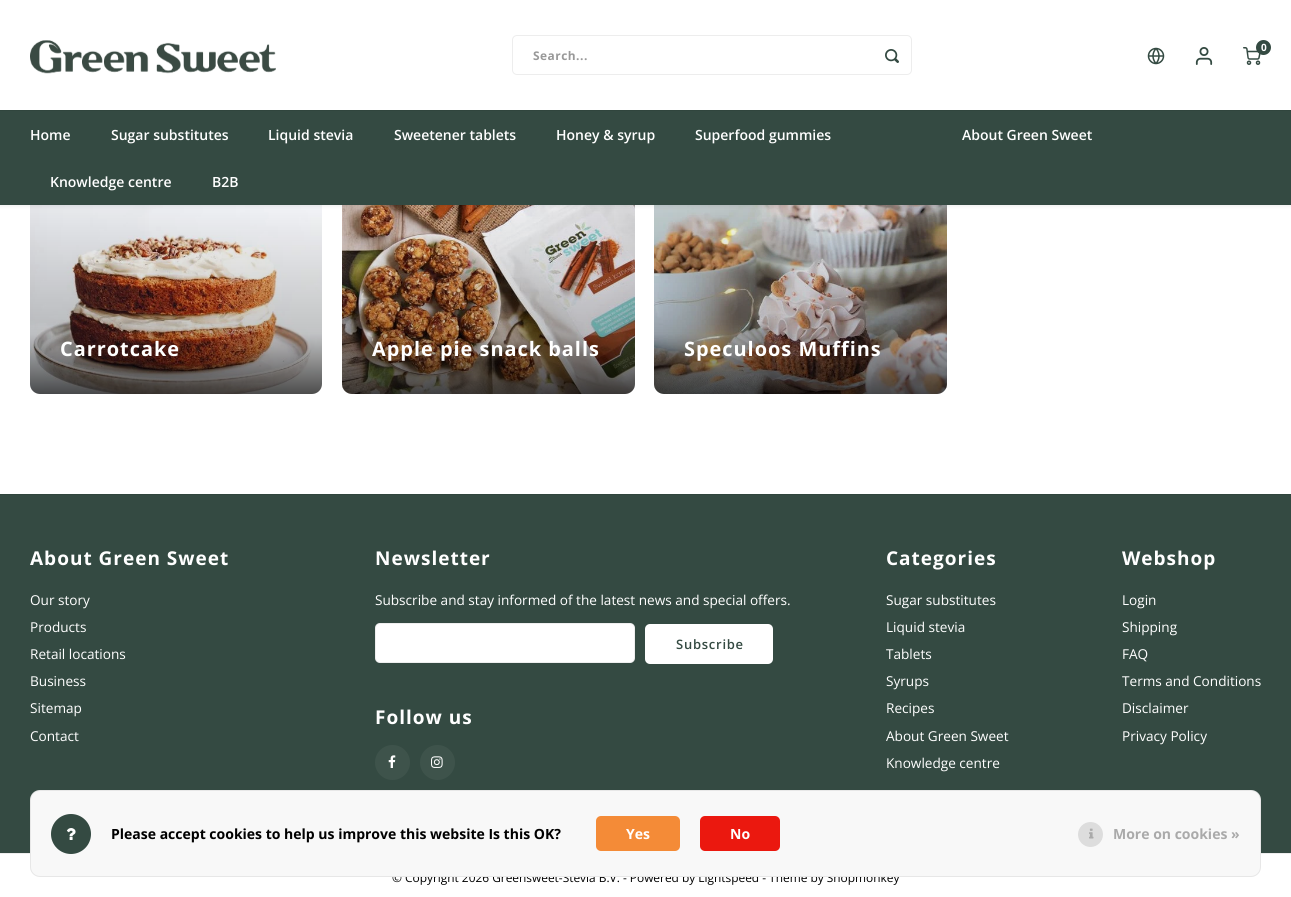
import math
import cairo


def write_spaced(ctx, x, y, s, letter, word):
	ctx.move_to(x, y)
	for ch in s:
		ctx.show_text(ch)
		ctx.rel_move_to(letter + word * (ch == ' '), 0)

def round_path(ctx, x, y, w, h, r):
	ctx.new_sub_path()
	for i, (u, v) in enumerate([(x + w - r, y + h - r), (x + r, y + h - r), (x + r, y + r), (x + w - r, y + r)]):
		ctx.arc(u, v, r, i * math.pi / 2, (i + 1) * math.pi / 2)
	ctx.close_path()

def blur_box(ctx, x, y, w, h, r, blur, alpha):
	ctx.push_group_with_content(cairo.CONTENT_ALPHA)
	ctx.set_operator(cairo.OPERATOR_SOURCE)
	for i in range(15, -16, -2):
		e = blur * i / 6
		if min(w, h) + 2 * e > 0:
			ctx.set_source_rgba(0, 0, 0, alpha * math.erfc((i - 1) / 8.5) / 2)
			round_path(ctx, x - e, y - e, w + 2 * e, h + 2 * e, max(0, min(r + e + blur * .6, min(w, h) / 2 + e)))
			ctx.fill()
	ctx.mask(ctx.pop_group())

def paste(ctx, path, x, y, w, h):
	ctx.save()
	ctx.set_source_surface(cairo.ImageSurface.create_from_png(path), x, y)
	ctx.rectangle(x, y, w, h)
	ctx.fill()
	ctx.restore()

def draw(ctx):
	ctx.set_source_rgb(1, 1, 1)
	ctx.paint()
	paste(ctx, 'media/6.png', 30, 205, 292, 189)
	gradient = cairo.LinearGradient(176, 394, 176, 189)
	gradient.add_color_stop_rgba(0, 0, 0, 0, 0.7)
	gradient.add_color_stop_rgba(0.29, 0, 0, 0, 0.23)
	gradient.add_color_stop_rgba(1, 0, 0, 0, 0)
	ctx.set_source(gradient)
	round_path(ctx, 30, 189, 292, 205, 10)
	ctx.fill()
	paste(ctx, 'media/7.png', 342, 205, 293, 189)
	gradient = cairo.LinearGradient(489, 394, 489, 189)
	gradient.add_color_stop_rgba(0, 0, 0, 0, 0.7)
	gradient.add_color_stop_rgba(0.29, 0, 0, 0, 0.23)
	gradient.add_color_stop_rgba(1, 0, 0, 0, 0)
	ctx.set_source(gradient)
	round_path(ctx, 342, 189, 293, 205, 10)
	ctx.fill()
	paste(ctx, 'media/8.png', 654, 205, 293, 189)
	gradient = cairo.LinearGradient(801, 394, 801, 189)
	gradient.add_color_stop_rgba(0, 0, 0, 0, 0.7)
	gradient.add_color_stop_rgba(0.29, 0, 0, 0, 0.23)
	gradient.add_color_stop_rgba(1, 0, 0, 0, 0)
	ctx.set_source(gradient)
	round_path(ctx, 654, 189, 293, 205, 10)
	ctx.fill()
	ctx.set_source_rgb(0, 0, 0)
	blur_box(ctx, 0, 1, 1291, 205, 0, 2, 0.08)
	ctx.set_source_rgb(1, 1, 1)
	ctx.rectangle(0, 0, 1291, 110)
	ctx.fill()
	paste(ctx, 'media/1.png', 30, 40, 246, 34)
	paste(ctx, 'media/2.png', 1147, 47, 18, 18)
	paste(ctx, 'media/3.png', 1195, 47, 18, 18)
	paste(ctx, 'media/4.png', 1243, 47, 18, 18)
	ctx.set_source_rgb(0.204, 0.29, 0.259)
	ctx.arc(1263.5, 47.5, 7.5, 0, 2 * math.pi)
	ctx.fill()
	ctx.select_font_face('Open Sans', cairo.FONT_SLANT_NORMAL, cairo.FONT_WEIGHT_BOLD)
	ctx.set_font_size(10)
	ctx.set_source_rgb(1, 1, 1)
	ctx.move_to(1261, 51)
	ctx.show_text('0')
	round_path(ctx, 512.5, 35.5, 399, 39, 4.5)
	ctx.set_source_rgb(0.929, 0.929, 0.929)
	ctx.set_line_width(1)
	ctx.stroke()
	ctx.set_font_size(11.9)
	ctx.set_source_rgb(0.6, 0.6, 0.6)
	write_spaced(ctx, 533, 60, 'Search...', 0.5, 0)
	paste(ctx, 'media/5.png', 885, 49, 14, 14)
	ctx.set_source_rgb(0.204, 0.29, 0.259)
	ctx.rectangle(0, 111, 1291, 94)
	ctx.fill()
	ctx.set_source_rgb(0.188, 0.271, 0.239)
	ctx.rectangle(0, 110, 1291, 1)
	ctx.fill()
	ctx.select_font_face('Open Sans SemiBold')
	ctx.set_font_size(14)
	ctx.set_source_rgb(1, 1, 1)
	for x, y, s in [
		(30, 140, 'Home'),
		(111, 140, 'Sugar substitutes'),
		(268, 140, 'Liquid stevia'),
		(394, 140, 'Sweetener tablets'),
		(556, 140, 'Honey & syrup'),
		(695, 140, 'Superfood gummies'),
		(962, 140, 'About Green Sweet'),
		(50, 187, 'Knowledge centre'),
		(212, 187, 'B2B'),
	]:
		ctx.move_to(x, y)
		ctx.show_text(s)
	ctx.select_font_face('Open Sans', cairo.FONT_SLANT_NORMAL, cairo.FONT_WEIGHT_BOLD)
	ctx.set_font_size(19.9)
	for x, y, s in [
		(60, 356, 'Carrotcake'),
		(372, 356, 'Apple pie snack balls'),
		(684, 356, 'Speculoos Muffins'),
	]:
		write_spaced(ctx, x, y, s, 1, 0)
	ctx.set_source_rgb(0.204, 0.29, 0.259)
	ctx.rectangle(0, 495, 1291, 358)
	ctx.fill()
	ctx.set_source_rgb(0.188, 0.271, 0.239)
	ctx.rectangle(0, 494, 1291, 1)
	ctx.fill()
	ctx.set_font_size(19)
	ctx.set_source_rgb(1, 1, 1)
	write_spaced(ctx, 30, 565, 'About Green Sweet', 1, 0)
	ctx.select_font_face('Open Sans')
	ctx.set_font_size(13.6)
	for x, y, s in [
		(30, 605, 'Our story'),
		(30, 632, 'Products'),
		(30, 659, 'Retail locations'),
		(30, 686, 'Business'),
		(30, 713, 'Sitemap'),
		(30, 741, 'Contact'),
	]:
		ctx.move_to(x, y)
		ctx.show_text(s)
	ctx.select_font_face('Open Sans', cairo.FONT_SLANT_NORMAL, cairo.FONT_WEIGHT_BOLD)
	ctx.set_font_size(19)
	write_spaced(ctx, 375, 565, 'Newsletter', 1, 0)
	ctx.select_font_face('Open Sans')
	ctx.set_font_size(13.6)
	ctx.move_to(375, 605)
	ctx.show_text('Subscribe and stay informed of the latest news and special offers.')
	round_path(ctx, 375, 623, 260, 40, 5)
	ctx.fill()
	round_path(ctx, 375.5, 623.5, 259, 39, 4.5)
	ctx.set_source_rgba(0, 0, 0, 0.07)
	ctx.stroke()
	ctx.set_source_rgb(1, 1, 1)
	round_path(ctx, 645, 624, 128, 40, 5)
	ctx.fill()
	ctx.select_font_face('Open Sans SemiBold')
	ctx.set_font_size(13)
	ctx.set_source_rgb(0.204, 0.29, 0.259)
	write_spaced(ctx, 676, 649, 'Subscribe', 0.75, 0)
	ctx.select_font_face('Open Sans', cairo.FONT_SLANT_NORMAL, cairo.FONT_WEIGHT_BOLD)
	ctx.set_font_size(19)
	ctx.set_source_rgb(1, 1, 1)
	write_spaced(ctx, 375, 724, 'Follow us', 1, 0)
	ctx.set_source_rgb(0.243, 0.325, 0.294)
	ctx.new_path()
	ctx.arc(392.5, 762.5, 17.5, 0, 2 * math.pi)
	ctx.fill()
	paste(ctx, 'media/9.png', 388, 755, 8, 13)
	ctx.arc(437.5, 762.5, 17.5, 0, 2 * math.pi)
	ctx.fill()
	paste(ctx, 'media/10.png', 431, 756, 12, 12)
	ctx.set_source_rgb(1, 1, 1)
	write_spaced(ctx, 886, 565, 'Categories', 1, 0)
	ctx.select_font_face('Open Sans')
	ctx.set_font_size(13.6)
	for x, y, s in [
		(886, 605, 'Sugar substitutes'),
		(886, 632, 'Liquid stevia'),
		(886, 659, 'Tablets'),
		(886, 686, 'Syrups'),
		(886, 713, 'Recipes'),
		(886, 741, 'About Green Sweet'),
		(886, 768, 'Knowledge centre'),
	]:
		ctx.move_to(x, y)
		ctx.show_text(s)
	ctx.select_font_face('Open Sans', cairo.FONT_SLANT_NORMAL, cairo.FONT_WEIGHT_BOLD)
	ctx.set_font_size(19)
	write_spaced(ctx, 1122, 565, 'Webshop', 1, 0)
	ctx.select_font_face('Open Sans')
	ctx.set_font_size(13.6)
	for x, y, s in [
		(1122, 605, 'Login'),
		(1122, 632, 'Shipping'),
		(1122, 659, 'FAQ'),
		(1122, 686, 'Terms and Conditions'),
		(1122, 713, 'Disclaimer'),
		(1122, 741, 'Privacy Policy'),
	]:
		ctx.move_to(x, y)
		ctx.show_text(s)
	ctx.set_source_rgb(0.929, 0.929, 0.929)
	ctx.rectangle(0, 853, 1291, 1)
	ctx.fill()
	ctx.set_font_size(11.9)
	ctx.set_source_rgb(0, 0, 0)
	ctx.move_to(392, 882)
	ctx.show_text('© Copyright 2026 Greensweet-Stevia B.V. - Powered by Lightspeed - Theme by Shopmonkey')
	ctx.set_source_rgb(0.969, 0.969, 0.969)
	round_path(ctx, 30, 790, 1231, 87, 10)
	ctx.fill()
	round_path(ctx, 30.5, 790.5, 1230, 86, 9.5)
	ctx.set_source_rgba(0, 0, 0, 0.07)
	ctx.stroke()
	ctx.set_source_rgb(0.204, 0.29, 0.259)
	ctx.arc(71, 834, 20, 0, 2 * math.pi)
	ctx.fill()
	paste(ctx, 'media/11.png', 66, 828, 10, 12)
	ctx.select_font_face('Open Sans', cairo.FONT_SLANT_NORMAL, cairo.FONT_WEIGHT_BOLD)
	ctx.set_font_size(14)
	ctx.set_source_rgb(0, 0, 0)
	ctx.move_to(111, 839)
	ctx.show_text('Please accept cookies to help us improve this website Is this OK?')
	ctx.set_source_rgb(0.957, 0.545, 0.216)
	round_path(ctx, 596, 816, 84, 35, 5)
	ctx.fill()
	ctx.set_source_rgb(1, 1, 1)
	ctx.move_to(626, 839)
	ctx.show_text('Yes')
	ctx.set_source_rgb(0.918, 0.094, 0.059)
	round_path(ctx, 700, 816, 80, 35, 5)
	ctx.fill()
	ctx.set_source_rgb(1, 1, 1)
	ctx.move_to(730, 839)
	ctx.show_text('No')
	ctx.set_source_rgb(0.867, 0.867, 0.867)
	ctx.new_path()
	ctx.arc(1090.5, 834.5, 12.5, 0, 2 * math.pi)
	ctx.fill()
	paste(ctx, 'media/12.png', 1089, 828, 5, 11)
	ctx.set_source_rgb(0.667, 0.667, 0.667)
	ctx.move_to(1113, 839)
	ctx.show_text('More on cookies »')


surface = cairo.ImageSurface(cairo.FORMAT_RGB24, 1291, 897)
ctx = cairo.Context(surface)
options = cairo.FontOptions()
options.set_hint_metrics(cairo.HINT_METRICS_OFF)
options.set_hint_style(cairo.HINT_STYLE_NONE)
ctx.set_font_options(options)
ctx.set_miter_limit(4)
draw(ctx)
surface.write_to_png('image.png')
